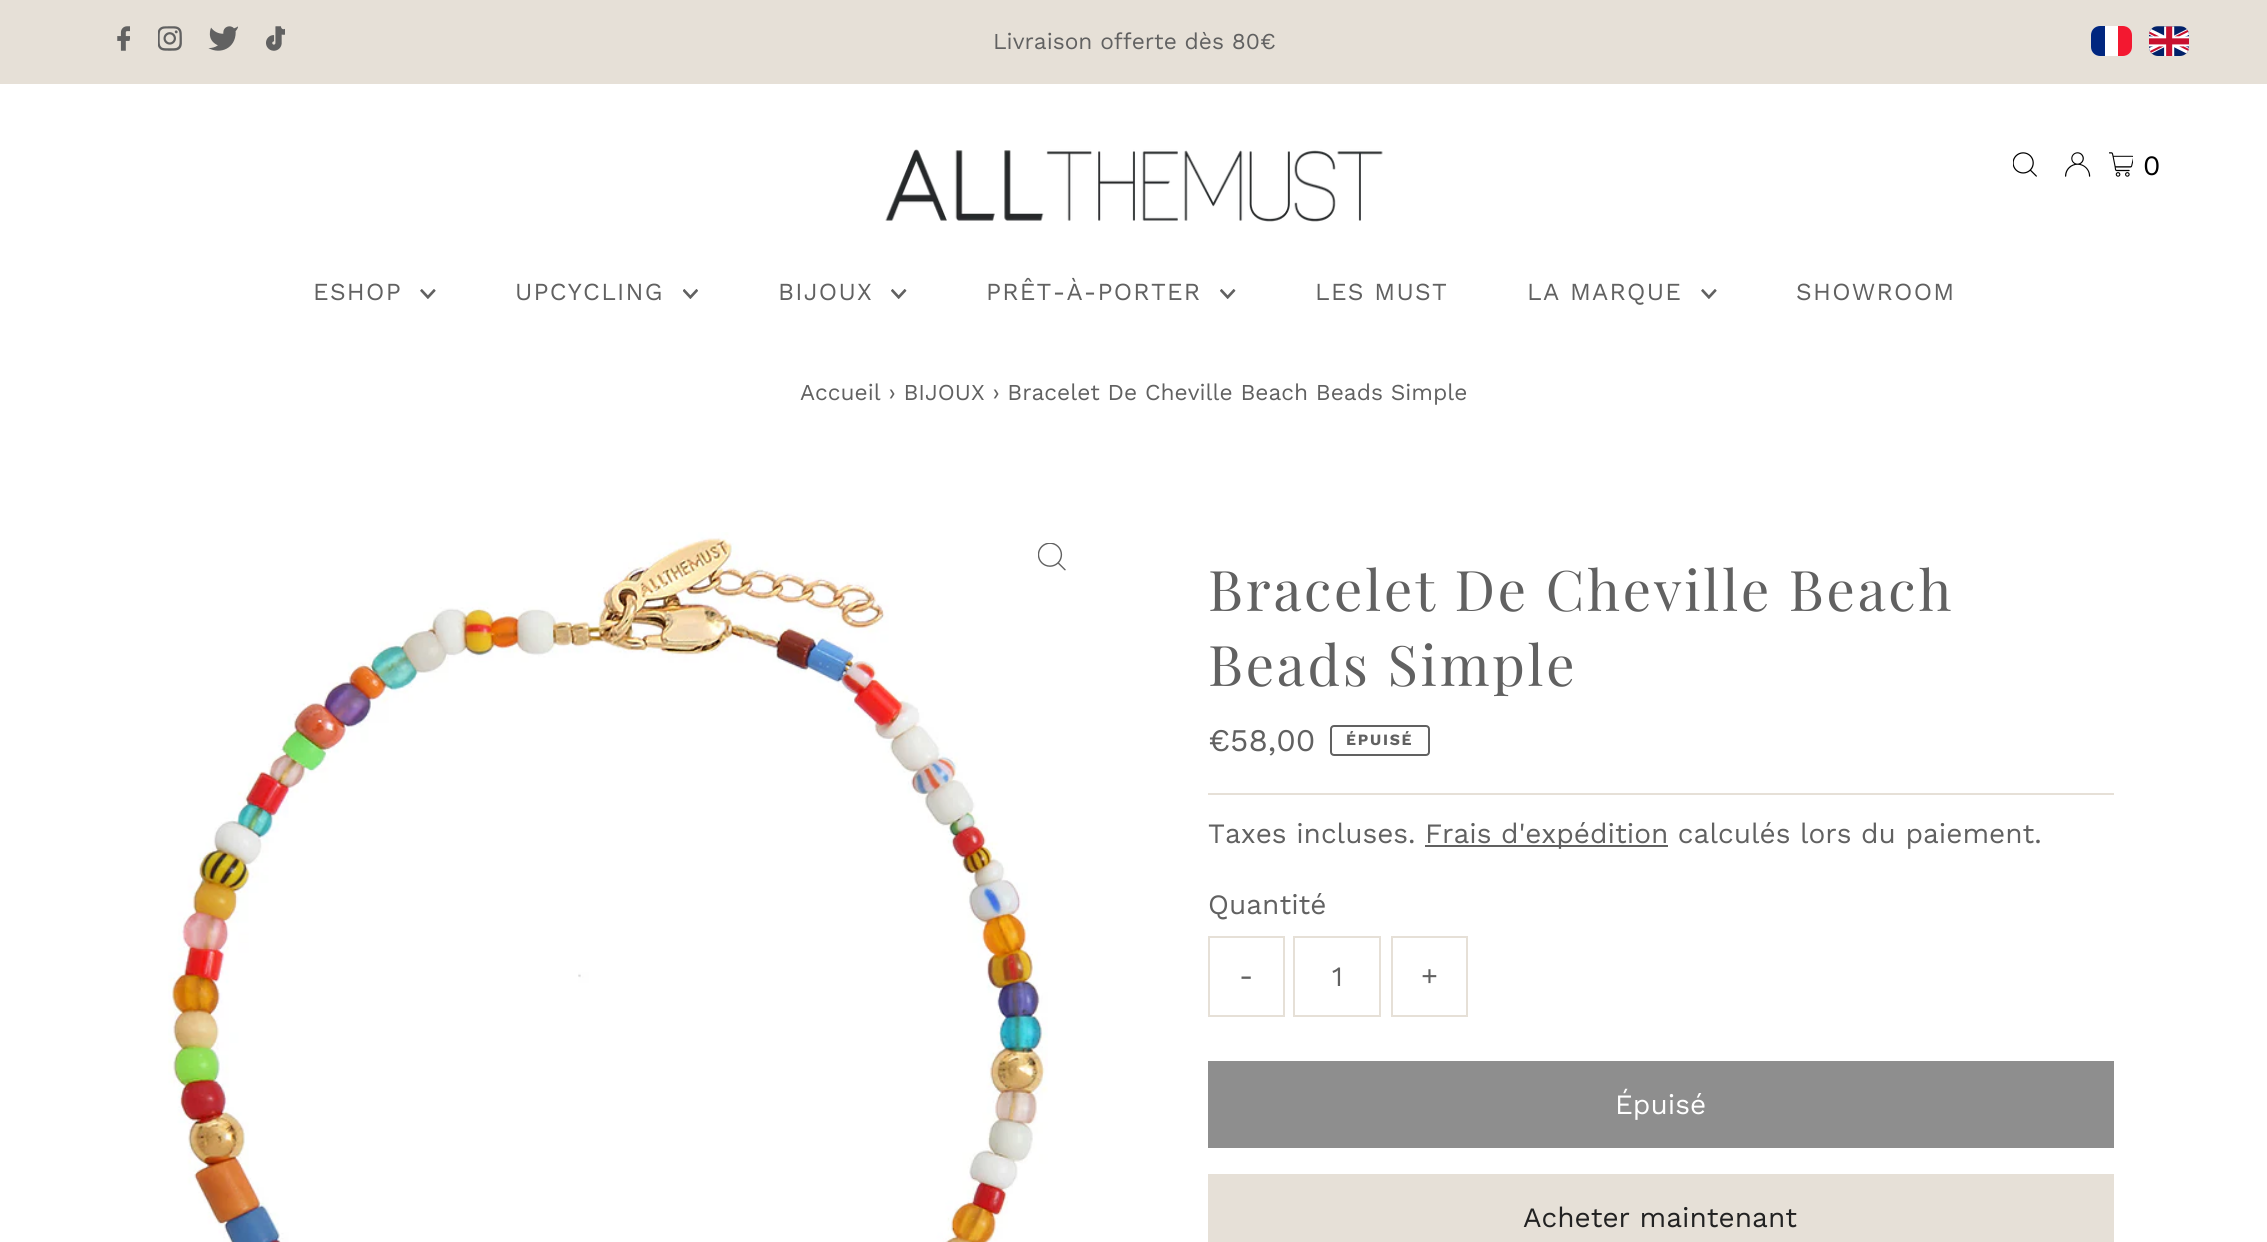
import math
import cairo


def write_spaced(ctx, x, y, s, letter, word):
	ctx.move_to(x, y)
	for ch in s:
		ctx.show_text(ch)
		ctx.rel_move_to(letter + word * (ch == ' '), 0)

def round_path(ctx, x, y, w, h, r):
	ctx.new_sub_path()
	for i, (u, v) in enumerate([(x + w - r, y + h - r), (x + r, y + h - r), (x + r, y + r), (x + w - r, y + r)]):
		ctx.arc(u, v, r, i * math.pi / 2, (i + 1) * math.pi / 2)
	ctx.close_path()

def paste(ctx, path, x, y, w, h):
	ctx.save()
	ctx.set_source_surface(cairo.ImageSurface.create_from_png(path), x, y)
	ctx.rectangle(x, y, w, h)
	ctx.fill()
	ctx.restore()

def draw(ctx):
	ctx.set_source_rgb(1, 1, 1)
	ctx.paint()
	ctx.set_source_rgb(0.902, 0.878, 0.843)
	ctx.rectangle(0, 0, 2267, 84)
	ctx.fill()
	ctx.set_source_rgb(1, 1, 1)
	round_path(ctx, 2091, 26, 41, 30, 9)
	ctx.fill()
	ctx.set_source_rgb(0, 0.149, 0.498)
	ctx.new_path()
	ctx.move_to(2100, 26)
	ctx.line_to(2105, 26)
	ctx.line_to(2105, 56)
	ctx.line_to(2100, 56)
	ctx.curve_to(2095, 56, 2091, 52, 2091, 47)
	ctx.line_to(2091, 35)
	ctx.curve_to(2091, 30, 2095, 26, 2100, 26)
	ctx.close_path()
	ctx.fill()
	ctx.set_source_rgb(0.953, 0.094, 0.188)
	ctx.new_path()
	ctx.move_to(2118, 26)
	ctx.line_to(2123, 26)
	ctx.curve_to(2128, 26, 2132, 30, 2132, 35)
	ctx.line_to(2132, 47)
	ctx.curve_to(2132, 52, 2128, 56, 2123, 56)
	ctx.line_to(2118, 56)
	ctx.close_path()
	ctx.fill()
	paste(ctx, 'media/1.png', 2149, 26, 40, 30)
	paste(ctx, 'media/2.png', 117, 26, 13, 25)
	paste(ctx, 'media/3.png', 158, 26, 24, 25)
	paste(ctx, 'media/4.png', 208, 26, 30, 25)
	paste(ctx, 'media/5.png', 266, 26, 19, 25)
	ctx.select_font_face('Work Sans')
	ctx.set_font_size(22.75)
	ctx.set_source_rgb(0.38, 0.38, 0.38)
	ctx.move_to(993, 49)
	ctx.show_text('Livraison offerte dès 80€')
	paste(ctx, 'media/6.png', 885, 149, 498, 73)
	paste(ctx, 'media/7.png', 2013, 152, 24, 25)
	paste(ctx, 'media/8.png', 2065, 152, 26, 25)
	paste(ctx, 'media/9.png', 2109, 152, 24, 25)
	ctx.set_font_size(28)
	ctx.set_source_rgb(0, 0, 0)
	ctx.move_to(2143, 175)
	ctx.show_text('0')
	ctx.set_font_size(24.5)
	ctx.set_source_rgb(0.38, 0.38, 0.38)
	write_spaced(ctx, 313, 300, 'ESHOP', 1.25, 0)
	paste(ctx, 'media/10.png', 420, 289, 16, 10)
	write_spaced(ctx, 515, 300, 'UPCYCLING', 1.25, 0)
	paste(ctx, 'media/11.png', 683, 289, 15, 10)
	write_spaced(ctx, 778, 300, 'BIJOUX', 1.25, 0)
	paste(ctx, 'media/12.png', 891, 289, 16, 10)
	write_spaced(ctx, 986, 300, 'PRÊT-À-PORTER', 1.25, 0)
	paste(ctx, 'media/12.png', 1220, 289, 16, 10)
	write_spaced(ctx, 1315, 300, 'LES MUST', 1.25, 0)
	write_spaced(ctx, 1527, 300, 'LA MARQUE', 1.25, 0)
	paste(ctx, 'media/10.png', 1701, 289, 16, 10)
	write_spaced(ctx, 1796, 300, 'SHOWROOM', 1.25, 0)
	ctx.set_font_size(22.75)
	ctx.move_to(800, 400)
	ctx.show_text('Accueil › BIJOUX › Bracelet De Cheville Beach Beads Simple')
	paste(ctx, 'media/13.png', 168, 532, 880, 710)
	paste(ctx, 'media/14.png', 1038, 543, 28, 28)
	ctx.select_font_face('Playfair Display')
	ctx.set_font_size(56)
	write_spaced(ctx, 1208, 611, 'Bracelet De Cheville Beach', 2.8, 0)
	write_spaced(ctx, 1208, 686, 'Beads Simple', 2.8, 0)
	ctx.set_source_rgb(0.902, 0.878, 0.843)
	ctx.rectangle(1208, 793, 906, 2)
	ctx.fill()
	ctx.select_font_face('Work Sans')
	ctx.set_font_size(31.5)
	ctx.set_source_rgb(0.38, 0.38, 0.38)
	ctx.move_to(1208, 751)
	ctx.show_text('€58,00')
	round_path(ctx, 1331, 726, 98, 29, 3)
	ctx.stroke()
	ctx.select_font_face('Work Sans', cairo.FONT_SLANT_NORMAL, cairo.FONT_WEIGHT_BOLD)
	ctx.set_font_size(15.75)
	write_spaced(ctx, 1346, 745, 'ÉPUISÉ', 1.75, 0)
	ctx.select_font_face('Work Sans')
	ctx.set_font_size(28)
	ctx.move_to(1208, 843)
	ctx.show_text('Taxes incluses.')
	ctx.rectangle(1425, 845, 243, 2)
	ctx.fill()
	ctx.move_to(1425, 843)
	ctx.show_text('Frais d\'expédition calculés lors du paiement.')
	ctx.move_to(1208, 914)
	ctx.show_text('Quantité')
	ctx.rectangle(1209, 937, 75, 79)
	ctx.set_source_rgb(0.902, 0.878, 0.843)
	ctx.stroke()
	ctx.set_source_rgb(0.38, 0.38, 0.38)
	ctx.move_to(1239, 985)
	ctx.show_text('-')
	ctx.rectangle(1294, 937, 86, 79)
	ctx.set_source_rgb(0.902, 0.878, 0.843)
	ctx.stroke()
	ctx.set_source_rgb(0.38, 0.38, 0.38)
	ctx.move_to(1332, 986)
	ctx.show_text('1')
	ctx.rectangle(1392, 937, 75, 79)
	ctx.set_source_rgb(0.902, 0.878, 0.843)
	ctx.stroke()
	ctx.set_source_rgb(0.38, 0.38, 0.38)
	ctx.move_to(1421, 985)
	ctx.show_text('+')
	ctx.set_source_rgb(0.557, 0.557, 0.557)
	ctx.rectangle(1208, 1061, 906, 87)
	ctx.fill()
	ctx.set_source_rgb(1, 1, 1)
	ctx.move_to(1615, 1114)
	ctx.show_text('Épuisé')
	ctx.set_source_rgb(0.902, 0.878, 0.843)
	ctx.rectangle(1208, 1174, 906, 68)
	ctx.fill()
	ctx.set_source_rgb(0.133, 0.133, 0.133)
	ctx.move_to(1523, 1227)
	ctx.show_text('Acheter maintenant')


surface = cairo.ImageSurface(cairo.FORMAT_RGB24, 2267, 1242)
ctx = cairo.Context(surface)
options = cairo.FontOptions()
options.set_hint_metrics(cairo.HINT_METRICS_OFF)
options.set_hint_style(cairo.HINT_STYLE_NONE)
ctx.set_font_options(options)
ctx.set_miter_limit(4)
draw(ctx)
surface.write_to_png('image.png')
